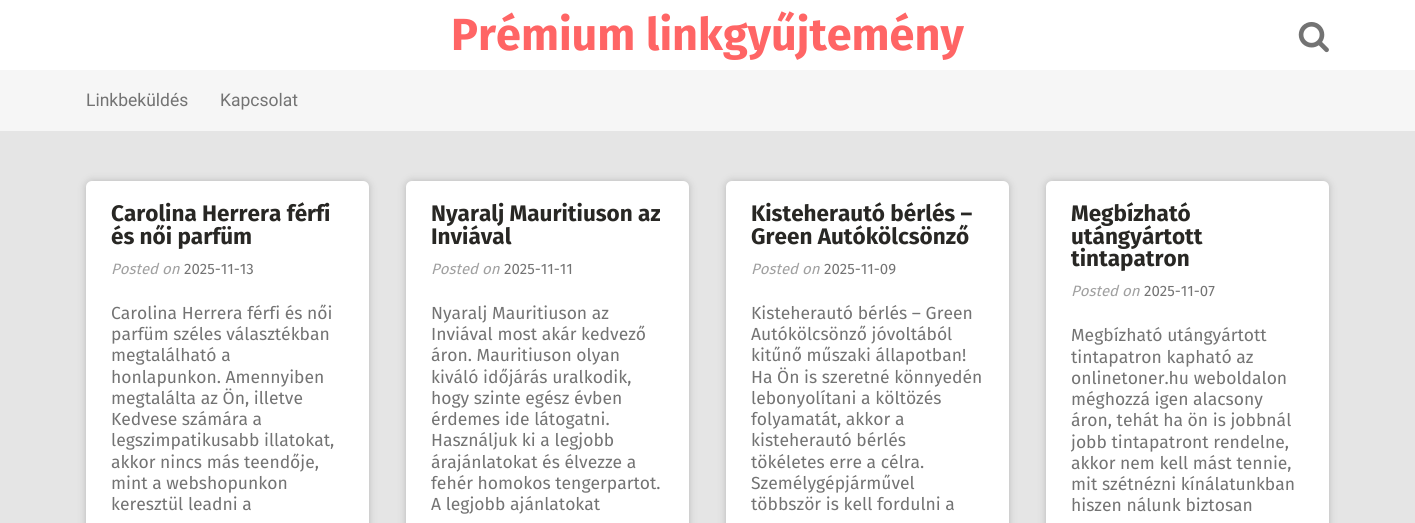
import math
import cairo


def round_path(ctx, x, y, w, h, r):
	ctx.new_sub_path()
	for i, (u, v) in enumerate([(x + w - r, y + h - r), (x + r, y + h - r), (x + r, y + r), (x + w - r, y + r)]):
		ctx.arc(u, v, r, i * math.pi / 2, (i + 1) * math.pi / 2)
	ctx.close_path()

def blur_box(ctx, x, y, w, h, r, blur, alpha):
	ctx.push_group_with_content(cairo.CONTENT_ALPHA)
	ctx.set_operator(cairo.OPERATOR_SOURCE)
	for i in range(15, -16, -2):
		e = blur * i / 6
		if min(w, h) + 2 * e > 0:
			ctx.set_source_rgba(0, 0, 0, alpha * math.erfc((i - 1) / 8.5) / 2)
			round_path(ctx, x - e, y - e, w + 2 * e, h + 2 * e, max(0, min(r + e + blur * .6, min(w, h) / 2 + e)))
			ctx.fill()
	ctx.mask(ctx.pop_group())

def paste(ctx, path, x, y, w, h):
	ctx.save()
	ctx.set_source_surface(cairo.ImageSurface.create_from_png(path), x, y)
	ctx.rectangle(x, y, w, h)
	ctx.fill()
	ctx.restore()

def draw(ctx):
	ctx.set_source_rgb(0.898, 0.898, 0.898)
	ctx.paint()
	ctx.set_source_rgb(1, 1, 1)
	ctx.rectangle(0, 0, 1415, 70)
	ctx.fill()
	ctx.select_font_face('Fira Sans', cairo.FONT_SLANT_NORMAL, cairo.FONT_WEIGHT_BOLD)
	ctx.set_font_size(45)
	ctx.set_source_rgb(1, 0.396, 0.396)
	ctx.move_to(451, 50)
	ctx.show_text('Prémium linkgyűjtemény')
	paste(ctx, 'media/1.png', 1298, 22, 31, 31)
	ctx.set_source_rgb(0.961, 0.961, 0.961)
	ctx.rectangle(0, 70, 1415, 61)
	ctx.fill()
	ctx.select_font_face('Roboto')
	ctx.set_font_size(17.5)
	ctx.set_source_rgb(0.451, 0.451, 0.451)
	ctx.move_to(86, 106)
	ctx.show_text('Linkbeküldés')
	ctx.move_to(220, 106)
	ctx.show_text('Kapcsolat')
	ctx.set_source_rgb(0, 0, 0)
	blur_box(ctx, 86, 181, 283, 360, 6, 4, 0.2)
	ctx.set_source_rgb(1, 1, 1)
	round_path(ctx, 86, 181, 283, 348, 6)
	ctx.fill()
	ctx.select_font_face('Fira Sans', cairo.FONT_SLANT_NORMAL, cairo.FONT_WEIGHT_BOLD)
	ctx.set_font_size(22.5)
	ctx.set_source_rgb(0.157, 0.153, 0.141)
	ctx.move_to(111, 221)
	ctx.show_text('Carolina Herrera férfi')
	ctx.move_to(111, 244)
	ctx.show_text('és női parfüm')
	ctx.select_font_face('Fira Sans', cairo.FONT_SLANT_ITALIC)
	ctx.set_font_size(15)
	ctx.set_source_rgb(0.627, 0.627, 0.627)
	ctx.move_to(111, 274)
	ctx.show_text('Posted on')
	ctx.select_font_face('Fira Sans')
	ctx.set_source_rgb(0.451, 0.451, 0.451)
	ctx.move_to(184, 274)
	ctx.show_text('2025-11-13')
	ctx.set_font_size(17.5)
	for x, y, s in [
		(111, 319, 'Carolina Herrera férfi és női'),
		(111, 340, 'parfüm széles választékban'),
		(111, 361, 'megtalálható a'),
		(111, 383, 'honlapunkon. Amennyiben'),
		(111, 404, 'megtalálta az Ön, illetve'),
		(111, 425, 'Kedvese számára a'),
		(111, 446, 'legszimpatikusabb illatokat,'),
		(111, 468, 'akkor nincs más teendője,'),
		(111, 489, 'mint a webshopunkon'),
		(111, 510, 'keresztül leadni a'),
	]:
		ctx.move_to(x, y)
		ctx.show_text(s)
	ctx.set_source_rgb(0, 0, 0)
	blur_box(ctx, 406, 181, 283, 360, 6, 4, 0.2)
	ctx.set_source_rgb(1, 1, 1)
	round_path(ctx, 406, 181, 283, 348, 6)
	ctx.fill()
	ctx.select_font_face('Fira Sans', cairo.FONT_SLANT_NORMAL, cairo.FONT_WEIGHT_BOLD)
	ctx.set_font_size(22.5)
	ctx.set_source_rgb(0.157, 0.153, 0.141)
	ctx.move_to(431, 221)
	ctx.show_text('Nyaralj Mauritiuson az')
	ctx.move_to(431, 244)
	ctx.show_text('Inviával')
	ctx.select_font_face('Fira Sans', cairo.FONT_SLANT_ITALIC)
	ctx.set_font_size(15)
	ctx.set_source_rgb(0.627, 0.627, 0.627)
	ctx.move_to(431, 274)
	ctx.show_text('Posted on')
	ctx.select_font_face('Fira Sans')
	ctx.set_source_rgb(0.451, 0.451, 0.451)
	ctx.move_to(504, 274)
	ctx.show_text('2025-11-11')
	ctx.set_font_size(17.5)
	for x, y, s in [
		(431, 319, 'Nyaralj Mauritiuson az'),
		(431, 340, 'Inviával most akár kedvező'),
		(431, 361, 'áron. Mauritiuson olyan'),
		(431, 383, 'kiváló időjárás uralkodik,'),
		(431, 404, 'hogy szinte egész évben'),
		(431, 425, 'érdemes ide látogatni.'),
		(431, 446, 'Használjuk ki a legjobb'),
		(431, 468, 'árajánlatokat és élvezze a'),
		(431, 489, 'fehér homokos tengerpartot.'),
		(431, 510, 'A legjobb ajánlatokat'),
	]:
		ctx.move_to(x, y)
		ctx.show_text(s)
	ctx.set_source_rgb(0, 0, 0)
	blur_box(ctx, 726, 181, 283, 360, 6, 4, 0.2)
	ctx.set_source_rgb(1, 1, 1)
	round_path(ctx, 726, 181, 283, 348, 6)
	ctx.fill()
	ctx.select_font_face('Fira Sans', cairo.FONT_SLANT_NORMAL, cairo.FONT_WEIGHT_BOLD)
	ctx.set_font_size(22.5)
	ctx.set_source_rgb(0.157, 0.153, 0.141)
	ctx.move_to(751, 221)
	ctx.show_text('Kisteherautó bérlés –')
	ctx.move_to(751, 244)
	ctx.show_text('Green Autókölcsönző')
	ctx.select_font_face('Fira Sans', cairo.FONT_SLANT_ITALIC)
	ctx.set_font_size(15)
	ctx.set_source_rgb(0.627, 0.627, 0.627)
	ctx.move_to(751, 274)
	ctx.show_text('Posted on')
	ctx.select_font_face('Fira Sans')
	ctx.set_source_rgb(0.451, 0.451, 0.451)
	ctx.move_to(824, 274)
	ctx.show_text('2025-11-09')
	ctx.set_font_size(17.5)
	for x, y, s in [
		(751, 319, 'Kisteherautó bérlés – Green'),
		(751, 340, 'Autókölcsönző jóvoltából'),
		(751, 361, 'kitűnő műszaki állapotban!'),
		(751, 383, 'Ha Ön is szeretné könnyedén'),
		(751, 404, 'lebonyolítani a költözés'),
		(751, 425, 'folyamatát, akkor a'),
		(751, 446, 'kisteherautó bérlés'),
		(751, 468, 'tökéletes erre a célra.'),
		(751, 489, 'Személygépjárművel'),
		(751, 510, 'többször is kell fordulni a'),
	]:
		ctx.move_to(x, y)
		ctx.show_text(s)
	ctx.set_source_rgb(0, 0, 0)
	blur_box(ctx, 1046, 181, 283, 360, 6, 4, 0.2)
	ctx.set_source_rgb(1, 1, 1)
	round_path(ctx, 1046, 181, 283, 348, 6)
	ctx.fill()
	ctx.select_font_face('Fira Sans', cairo.FONT_SLANT_NORMAL, cairo.FONT_WEIGHT_BOLD)
	ctx.set_font_size(22.5)
	ctx.set_source_rgb(0.157, 0.153, 0.141)
	for x, y, s in [
		(1071, 221, 'Megbízható'),
		(1071, 244, 'utángyártott'),
		(1071, 266, 'tintapatron'),
	]:
		ctx.move_to(x, y)
		ctx.show_text(s)
	ctx.select_font_face('Fira Sans', cairo.FONT_SLANT_ITALIC)
	ctx.set_font_size(15)
	ctx.set_source_rgb(0.627, 0.627, 0.627)
	ctx.move_to(1071, 296)
	ctx.show_text('Posted on')
	ctx.select_font_face('Fira Sans')
	ctx.set_source_rgb(0.451, 0.451, 0.451)
	ctx.move_to(1144, 296)
	ctx.show_text('2025-11-07')
	ctx.set_font_size(17.5)
	for x, y, s in [
		(1071, 341, 'Megbízható utángyártott'),
		(1071, 363, 'tintapatron kapható az'),
		(1071, 384, 'onlinetoner.hu weboldalon'),
		(1071, 405, 'méghozzá igen alacsony'),
		(1071, 426, 'áron, tehát ha ön is jobbnál'),
		(1071, 448, 'jobb tintapatront rendelne,'),
		(1071, 469, 'akkor nem kell mást tennie,'),
		(1071, 490, 'mit szétnézni kínálatunkban'),
		(1071, 511, 'hiszen nálunk biztosan'),
	]:
		ctx.move_to(x, y)
		ctx.show_text(s)


surface = cairo.ImageSurface(cairo.FORMAT_RGB24, 1415, 523)
ctx = cairo.Context(surface)
options = cairo.FontOptions()
options.set_hint_metrics(cairo.HINT_METRICS_OFF)
options.set_hint_style(cairo.HINT_STYLE_NONE)
ctx.set_font_options(options)
ctx.set_miter_limit(4)
draw(ctx)
surface.write_to_png('image.png')
